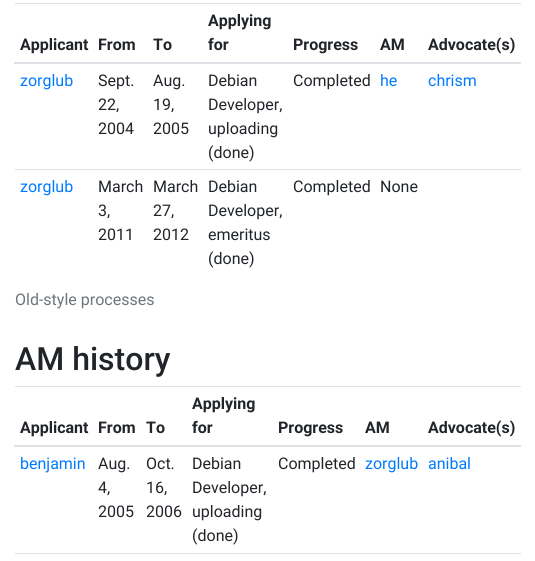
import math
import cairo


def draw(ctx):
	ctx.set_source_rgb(1, 1, 1)
	ctx.paint()
	ctx.select_font_face('Roboto', cairo.FONT_SLANT_NORMAL, cairo.FONT_WEIGHT_BOLD)
	ctx.set_font_size(16)
	ctx.set_source_rgb(0.129, 0.145, 0.161)
	for x, y, s in [
		(20, 50, 'Applicant'),
		(98, 50, 'From'),
		(153, 50, 'To'),
		(208, 26, 'Applying'),
		(208, 50, 'for'),
		(293, 50, 'Progress'),
		(380, 50, 'AM'),
	]:
		ctx.move_to(x, y)
		ctx.show_text(s)
	ctx.set_source_rgb(0.871, 0.886, 0.902)
	ctx.rectangle(15, 3, 506, 1)
	ctx.fill()
	ctx.rectangle(14, 62, 507, 2)
	ctx.fill()
	ctx.set_source_rgb(0.129, 0.145, 0.161)
	ctx.move_to(428, 50)
	ctx.show_text('Advocate(s)')
	ctx.select_font_face('Roboto')
	ctx.set_source_rgb(0, 0.482, 1)
	ctx.move_to(20, 86)
	ctx.show_text('zorglub')
	ctx.set_source_rgb(0.129, 0.145, 0.161)
	for x, y, s in [
		(98, 86, 'Sept.'),
		(98, 110, '22,'),
		(98, 134, '2004'),
		(153, 86, 'Aug.'),
		(153, 110, '19,'),
		(153, 134, '2005'),
		(208, 86, 'Debian'),
		(208, 110, 'Developer,'),
		(208, 134, 'uploading'),
		(208, 158, '(done)'),
		(293, 86, 'Completed'),
	]:
		ctx.move_to(x, y)
		ctx.show_text(s)
	ctx.set_source_rgb(0, 0.482, 1)
	ctx.move_to(380, 86)
	ctx.show_text('he')
	ctx.move_to(428, 86)
	ctx.show_text('chrism')
	ctx.set_source_rgb(0.871, 0.886, 0.902)
	ctx.rectangle(15, 169, 506, 1)
	ctx.fill()
	ctx.set_source_rgb(0, 0.482, 1)
	ctx.move_to(20, 192)
	ctx.show_text('zorglub')
	ctx.set_source_rgb(0.129, 0.145, 0.161)
	for x, y, s in [
		(98, 192, 'March'),
		(98, 216, '3,'),
		(98, 240, '2011'),
		(153, 192, 'March'),
		(153, 216, '27,'),
		(153, 240, '2012'),
		(208, 192, 'Debian'),
		(208, 216, 'Developer,'),
		(208, 240, 'emeritus'),
		(208, 264, '(done)'),
		(293, 192, 'Completed'),
		(380, 192, 'None'),
	]:
		ctx.move_to(x, y)
		ctx.show_text(s)
	ctx.set_source_rgb(0.424, 0.459, 0.49)
	ctx.move_to(15, 305)
	ctx.show_text('Old-style processes')
	ctx.select_font_face('Roboto Medium')
	ctx.set_font_size(32)
	ctx.set_source_rgb(0.129, 0.145, 0.161)
	ctx.move_to(15, 370)
	ctx.show_text('AM history')
	ctx.select_font_face('Roboto', cairo.FONT_SLANT_NORMAL, cairo.FONT_WEIGHT_BOLD)
	ctx.set_font_size(16)
	for x, y, s in [
		(20, 433, 'Applicant'),
		(98, 433, 'From'),
		(146, 433, 'To'),
		(192, 409, 'Applying'),
		(192, 433, 'for'),
		(278, 433, 'Progress'),
		(365, 433, 'AM'),
	]:
		ctx.move_to(x, y)
		ctx.show_text(s)
	ctx.set_source_rgb(0.871, 0.886, 0.902)
	ctx.rectangle(15, 386, 506, 1)
	ctx.fill()
	ctx.rectangle(14, 445, 507, 2)
	ctx.fill()
	ctx.set_source_rgb(0.129, 0.145, 0.161)
	ctx.move_to(428, 433)
	ctx.show_text('Advocate(s)')
	ctx.select_font_face('Roboto')
	ctx.set_source_rgb(0, 0.482, 1)
	ctx.move_to(20, 469)
	ctx.show_text('benjamin')
	ctx.set_source_rgb(0.129, 0.145, 0.161)
	for x, y, s in [
		(98, 469, 'Aug.'),
		(98, 493, '4,'),
		(98, 517, '2005'),
		(146, 469, 'Oct.'),
		(146, 493, '16,'),
		(146, 517, '2006'),
		(192, 469, 'Debian'),
		(192, 493, 'Developer,'),
		(192, 517, 'uploading'),
		(192, 541, '(done)'),
		(278, 469, 'Completed'),
	]:
		ctx.move_to(x, y)
		ctx.show_text(s)
	ctx.set_source_rgb(0, 0.482, 1)
	ctx.move_to(365, 469)
	ctx.show_text('zorglub')
	ctx.move_to(428, 469)
	ctx.show_text('anibal')
	ctx.set_source_rgb(0.871, 0.886, 0.902)
	ctx.rectangle(15, 553, 506, 1)
	ctx.fill()


surface = cairo.ImageSurface(cairo.FORMAT_RGB24, 535, 561)
ctx = cairo.Context(surface)
options = cairo.FontOptions()
options.set_hint_metrics(cairo.HINT_METRICS_OFF)
options.set_hint_style(cairo.HINT_STYLE_NONE)
ctx.set_font_options(options)
ctx.set_miter_limit(4)
draw(ctx)
surface.write_to_png('image.png')
